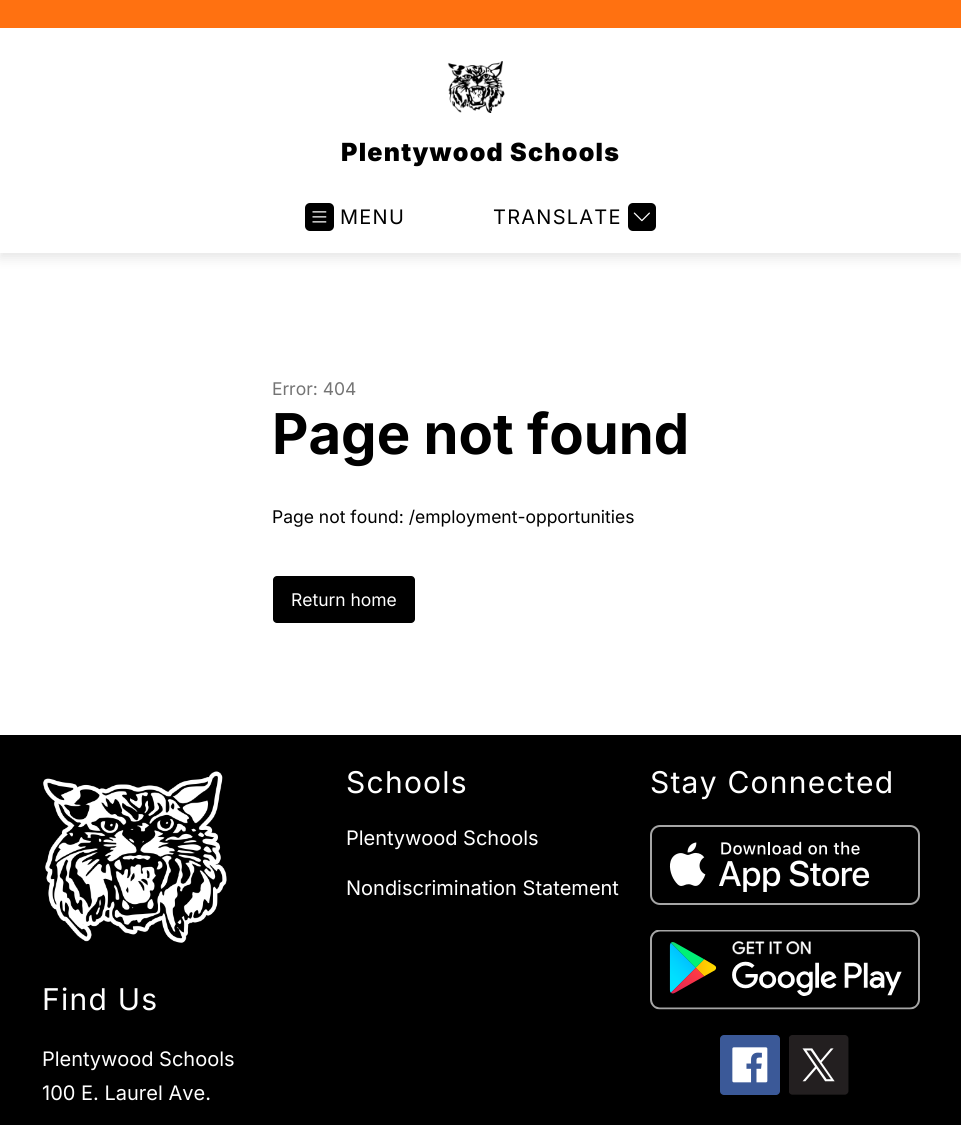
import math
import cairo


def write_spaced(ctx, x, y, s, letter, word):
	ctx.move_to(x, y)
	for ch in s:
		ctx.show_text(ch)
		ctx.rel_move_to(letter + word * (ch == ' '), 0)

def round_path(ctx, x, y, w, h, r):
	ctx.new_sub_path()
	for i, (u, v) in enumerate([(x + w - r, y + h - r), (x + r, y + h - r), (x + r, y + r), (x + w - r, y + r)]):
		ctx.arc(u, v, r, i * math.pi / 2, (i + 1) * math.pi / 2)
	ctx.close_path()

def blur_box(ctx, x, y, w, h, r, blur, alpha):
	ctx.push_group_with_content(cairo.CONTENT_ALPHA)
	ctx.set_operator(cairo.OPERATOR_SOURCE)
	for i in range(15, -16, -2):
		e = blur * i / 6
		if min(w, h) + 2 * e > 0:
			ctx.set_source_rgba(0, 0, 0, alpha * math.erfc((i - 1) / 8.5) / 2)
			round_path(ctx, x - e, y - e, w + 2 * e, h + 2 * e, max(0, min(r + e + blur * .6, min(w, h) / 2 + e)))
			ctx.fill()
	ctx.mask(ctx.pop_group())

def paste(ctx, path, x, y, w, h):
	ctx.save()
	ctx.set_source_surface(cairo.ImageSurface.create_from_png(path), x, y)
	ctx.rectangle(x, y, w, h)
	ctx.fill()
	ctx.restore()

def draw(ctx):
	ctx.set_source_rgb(1, 1, 1)
	ctx.paint()
	ctx.set_source_rgb(0, 0, 0)
	blur_box(ctx, 0, -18, 961, 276, 0, 6, 0.1)
	ctx.set_source_rgb(1, 1, 1)
	ctx.rectangle(0, 28, 961, 225)
	ctx.fill()
	ctx.set_source_rgb(1, 0.443, 0.067)
	ctx.rectangle(0, 0, 961, 28)
	ctx.fill()
	paste(ctx, 'media/1.png', 447, 61, 58, 52)
	ctx.select_font_face('Inter Black')
	ctx.set_font_size(25)
	ctx.set_source_rgb(0, 0, 0)
	write_spaced(ctx, 341, 161, 'Plentywood Schools', 1.25, 0)
	paste(ctx, 'media/2.png', 305, 203, 29, 28)
	ctx.select_font_face('Inter')
	ctx.set_font_size(20)
	write_spaced(ctx, 340, 224, 'MENU', 1.25, 0)
	write_spaced(ctx, 493, 224, 'TRANSLATE', 1.25, 0)
	paste(ctx, 'media/3.png', 628, 203, 28, 28)
	ctx.set_font_size(17.5)
	ctx.set_source_rgb(0.455, 0.455, 0.455)
	ctx.move_to(272, 395)
	ctx.show_text('Error: 404')
	ctx.select_font_face('Inter', cairo.FONT_SLANT_NORMAL, cairo.FONT_WEIGHT_BOLD)
	ctx.set_font_size(56.25)
	ctx.set_source_rgb(0, 0, 0)
	ctx.move_to(272, 454)
	ctx.show_text('Page not found')
	ctx.select_font_face('Inter')
	ctx.set_font_size(17.5)
	ctx.move_to(272, 523)
	ctx.show_text('Page not found: /employment-opportunities')
	round_path(ctx, 273, 576, 142, 47, 4)
	ctx.fill()
	ctx.set_source_rgb(1, 1, 1)
	ctx.move_to(291, 606)
	ctx.show_text('Return home')
	ctx.set_source_rgb(0, 0, 0)
	ctx.rectangle(0, 735, 961, 390)
	ctx.fill()
	ctx.set_font_size(30)
	ctx.set_source_rgb(1, 1, 1)
	write_spaced(ctx, 346, 793, 'Schools', 1.25, 0)
	ctx.set_font_size(20)
	ctx.move_to(346, 845)
	ctx.show_text('Plentywood Schools')
	ctx.move_to(346, 895)
	ctx.show_text('Nondiscrimination Statement')
	ctx.set_font_size(30)
	write_spaced(ctx, 650, 793, 'Stay Connected', 1.25, 0)
	paste(ctx, 'media/4.png', 650, 825, 270, 80)
	paste(ctx, 'media/5.png', 650, 930, 270, 80)
	paste(ctx, 'media/6.png', 720, 1035, 60, 60)
	paste(ctx, 'media/7.png', 789, 1035, 60, 60)
	paste(ctx, 'media/8.png', 43, 771, 184, 172)
	write_spaced(ctx, 42, 1010, 'Find Us', 1.25, 0)
	ctx.set_font_size(20)
	ctx.move_to(42, 1066)
	ctx.show_text('Plentywood Schools')
	ctx.move_to(42, 1100)
	ctx.show_text('100 E. Laurel Ave.')


surface = cairo.ImageSurface(cairo.FORMAT_RGB24, 961, 1125)
ctx = cairo.Context(surface)
options = cairo.FontOptions()
options.set_hint_metrics(cairo.HINT_METRICS_OFF)
options.set_hint_style(cairo.HINT_STYLE_NONE)
ctx.set_font_options(options)
ctx.set_miter_limit(4)
draw(ctx)
surface.write_to_png('image.png')
